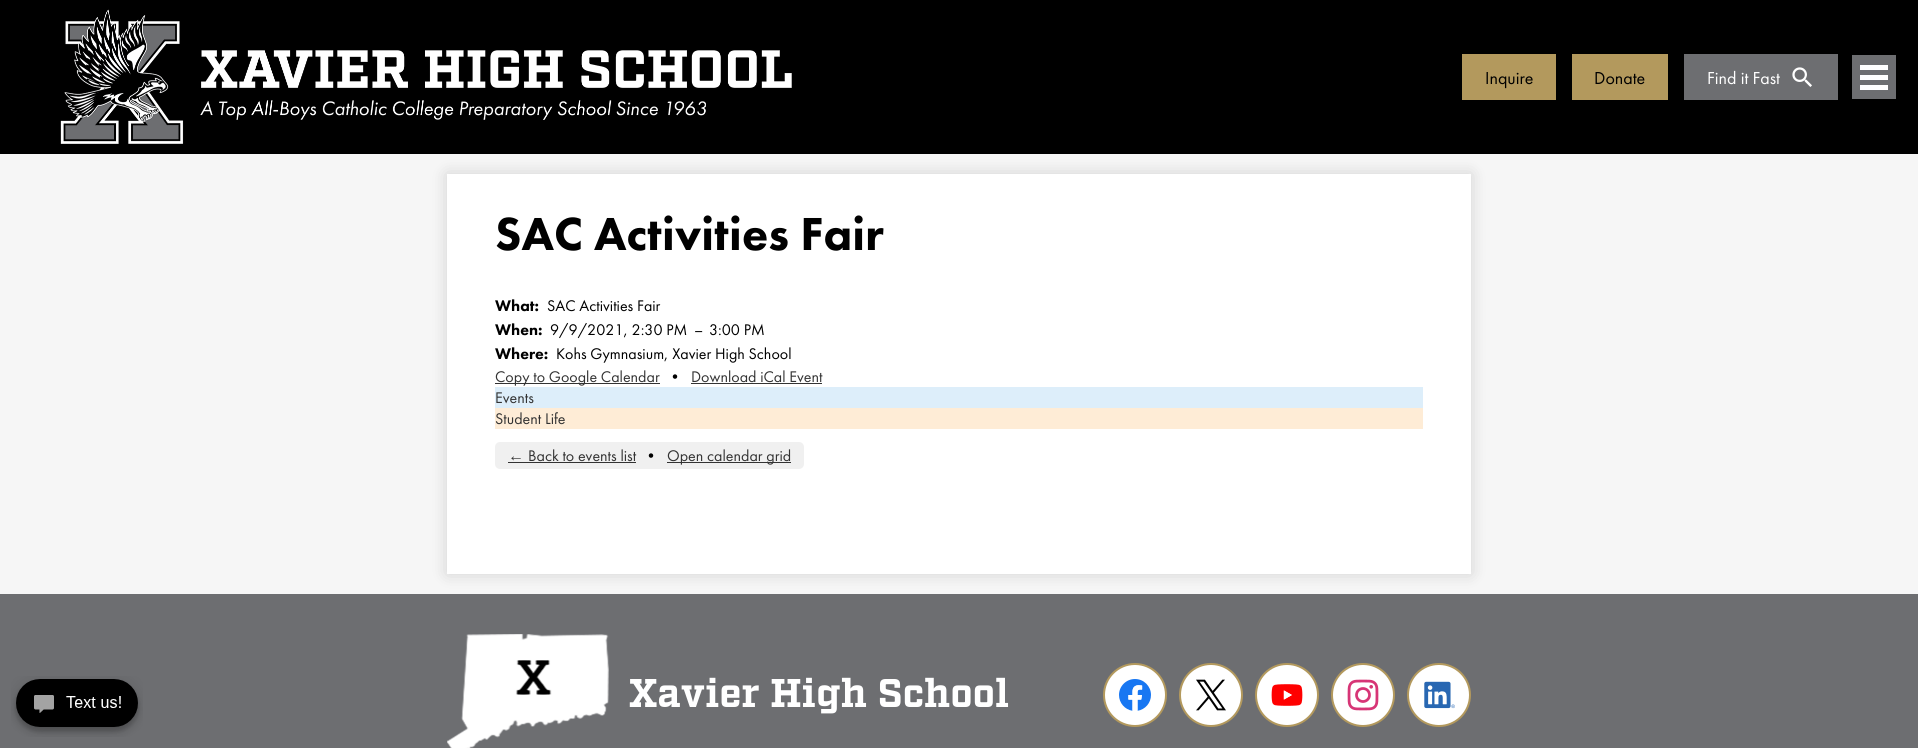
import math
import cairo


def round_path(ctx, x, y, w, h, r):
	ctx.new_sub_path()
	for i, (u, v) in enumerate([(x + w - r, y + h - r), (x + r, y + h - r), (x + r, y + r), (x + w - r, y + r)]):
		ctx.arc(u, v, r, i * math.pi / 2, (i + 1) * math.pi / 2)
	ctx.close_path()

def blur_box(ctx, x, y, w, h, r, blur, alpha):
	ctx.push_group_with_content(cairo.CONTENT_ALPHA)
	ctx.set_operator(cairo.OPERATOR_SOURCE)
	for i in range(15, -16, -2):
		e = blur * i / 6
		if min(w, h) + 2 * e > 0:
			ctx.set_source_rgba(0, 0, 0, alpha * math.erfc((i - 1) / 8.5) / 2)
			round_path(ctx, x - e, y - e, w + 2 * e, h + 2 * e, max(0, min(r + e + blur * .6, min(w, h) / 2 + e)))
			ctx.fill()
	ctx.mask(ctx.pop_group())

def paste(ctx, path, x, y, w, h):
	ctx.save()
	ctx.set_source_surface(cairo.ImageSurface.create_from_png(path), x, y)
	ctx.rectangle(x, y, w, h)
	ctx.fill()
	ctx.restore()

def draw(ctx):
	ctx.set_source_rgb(0.961, 0.961, 0.961)
	ctx.paint()
	ctx.set_source_rgb(0.427, 0.431, 0.443)
	ctx.rectangle(0, 594, 1918, 154)
	ctx.fill()
	ctx.set_source_rgb(0, 0, 0)
	blur_box(ctx, 447, 174, 1024, 400, 0, 8, 0.15)
	ctx.set_source_rgb(0, 0, 0)
	ctx.rectangle(0, 0, 1918, 154)
	ctx.fill()
	paste(ctx, 'media/1.png', 60, 9, 732, 135)
	ctx.set_source_rgb(0.702, 0.6, 0.365)
	ctx.rectangle(1462, 54, 94, 46)
	ctx.fill()
	ctx.select_font_face('Futura PT')
	ctx.set_font_size(18)
	ctx.set_source_rgb(0, 0, 0)
	ctx.move_to(1485, 84)
	ctx.show_text('Inquire')
	ctx.set_source_rgb(0.702, 0.6, 0.365)
	ctx.rectangle(1572, 54, 96, 46)
	ctx.fill()
	ctx.set_source_rgb(0, 0, 0)
	ctx.move_to(1594, 84)
	ctx.show_text('Donate')
	ctx.set_source_rgb(0.427, 0.431, 0.443)
	ctx.rectangle(1684, 54, 154, 46)
	ctx.fill()
	ctx.set_source_rgb(1, 1, 1)
	ctx.move_to(1707, 84)
	ctx.show_text('Find it Fast')
	paste(ctx, 'media/2.png', 1792, 67, 20, 20)
	ctx.set_source_rgb(0.427, 0.431, 0.443)
	ctx.rectangle(1852, 55, 44, 44)
	ctx.fill()
	ctx.set_source_rgb(1, 1, 1)
	ctx.rectangle(1860, 65, 28, 5)
	ctx.rectangle(1860, 75, 28, 5)
	ctx.rectangle(1860, 85, 28, 5)
	ctx.rectangle(447, 174, 1024, 400)
	ctx.fill()
	ctx.select_font_face('Futura PT Black')
	ctx.set_font_size(48)
	ctx.set_source_rgb(0, 0, 0)
	ctx.move_to(495, 250)
	ctx.show_text('SAC Activities Fair')
	ctx.set_font_size(16)
	ctx.move_to(495, 311)
	ctx.show_text('What:')
	ctx.select_font_face('Futura PT')
	ctx.move_to(547, 311)
	ctx.show_text('SAC Activities Fair')
	ctx.select_font_face('Futura PT Black')
	ctx.move_to(495, 335)
	ctx.show_text('When:')
	ctx.select_font_face('Futura PT')
	for x, y, s in [
		(550, 335, '9/9/2021, 2:30 PM'),
		(694, 335, '–'),
		(709, 335, '3:00 PM'),
	]:
		ctx.move_to(x, y)
		ctx.show_text(s)
	ctx.select_font_face('Futura PT Black')
	ctx.move_to(495, 359)
	ctx.show_text('Where:')
	ctx.select_font_face('Futura PT')
	ctx.move_to(556, 359)
	ctx.show_text('Kohs Gymnasium, Xavier High School')
	ctx.set_source_rgb(0.2, 0.2, 0.2)
	ctx.rectangle(495, 383, 165, 1)
	ctx.fill()
	ctx.move_to(495, 382)
	ctx.show_text('Copy to Google Calendar')
	ctx.set_source_rgb(0, 0, 0)
	ctx.move_to(667, 382)
	ctx.show_text('•')
	ctx.set_source_rgb(0.2, 0.2, 0.2)
	ctx.move_to(691, 382)
	ctx.show_text('Download iCal Event')
	ctx.rectangle(691, 383, 131, 1)
	ctx.fill()
	ctx.set_source_rgb(0.867, 0.933, 0.98)
	ctx.rectangle(495, 387, 928, 21)
	ctx.fill()
	ctx.set_source_rgb(0.2, 0.2, 0.2)
	ctx.move_to(495, 403)
	ctx.show_text('Events')
	ctx.set_source_rgb(0.996, 0.922, 0.839)
	ctx.rectangle(495, 408, 928, 21)
	ctx.fill()
	ctx.set_source_rgb(0.2, 0.2, 0.2)
	ctx.move_to(495, 424)
	ctx.show_text('Student Life')
	ctx.set_source_rgb(0.941, 0.941, 0.941)
	round_path(ctx, 495, 442, 309, 27, 5)
	ctx.fill()
	ctx.set_source_rgb(0.2, 0.2, 0.2)
	ctx.move_to(528, 461)
	ctx.show_text('Back to events list')
	ctx.set_source_rgb(0, 0, 0)
	ctx.move_to(643, 461)
	ctx.show_text('•')
	ctx.set_source_rgb(0.2, 0.2, 0.2)
	ctx.rectangle(667, 462, 124, 1)
	ctx.fill()
	ctx.move_to(667, 461)
	ctx.show_text('Open calendar grid')
	ctx.select_font_face('Liberation Sans')
	ctx.move_to(508, 461)
	ctx.show_text('←')
	ctx.rectangle(508, 462, 128, 1)
	ctx.fill()
	paste(ctx, 'media/3.png', 11, 676, 132, 61)
	paste(ctx, 'media/4.png', 447, 634, 162, 114)
	ctx.select_font_face('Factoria', cairo.FONT_SLANT_NORMAL, cairo.FONT_WEIGHT_BOLD)
	ctx.set_font_size(40)
	ctx.set_source_rgb(1, 1, 1)
	ctx.move_to(629, 707)
	ctx.show_text('Xavier High School')
	ctx.new_path()
	ctx.arc(1135, 695, 31, 0, 2 * math.pi)
	ctx.fill_preserve()
	ctx.set_source_rgb(0.702, 0.6, 0.365)
	ctx.stroke()
	paste(ctx, 'media/5.png', 1119, 679, 32, 32)
	ctx.set_source_rgb(1, 1, 1)
	ctx.arc(1211, 695, 31, 0, 2 * math.pi)
	ctx.fill_preserve()
	ctx.set_source_rgb(0.702, 0.6, 0.365)
	ctx.stroke()
	paste(ctx, 'media/6.png', 1196, 679, 30, 32)
	ctx.set_source_rgb(1, 1, 1)
	ctx.arc(1287, 695, 31, 0, 2 * math.pi)
	ctx.fill_preserve()
	ctx.set_source_rgb(0.702, 0.6, 0.365)
	ctx.stroke()
	paste(ctx, 'media/7.png', 1271, 684, 32, 22)
	ctx.set_source_rgb(1, 1, 1)
	ctx.arc(1363, 695, 31, 0, 2 * math.pi)
	ctx.fill_preserve()
	ctx.set_source_rgb(0.702, 0.6, 0.365)
	ctx.stroke()
	paste(ctx, 'media/8.png', 1347, 679, 32, 32)
	ctx.set_source_rgb(1, 1, 1)
	ctx.arc(1439, 695, 31, 0, 2 * math.pi)
	ctx.fill_preserve()
	ctx.set_source_rgb(0.702, 0.6, 0.365)
	ctx.stroke()
	paste(ctx, 'media/9.png', 1424, 681, 31, 28)


surface = cairo.ImageSurface(cairo.FORMAT_RGB24, 1918, 748)
ctx = cairo.Context(surface)
options = cairo.FontOptions()
options.set_hint_metrics(cairo.HINT_METRICS_OFF)
options.set_hint_style(cairo.HINT_STYLE_NONE)
ctx.set_font_options(options)
ctx.set_miter_limit(4)
draw(ctx)
surface.write_to_png('image.png')
